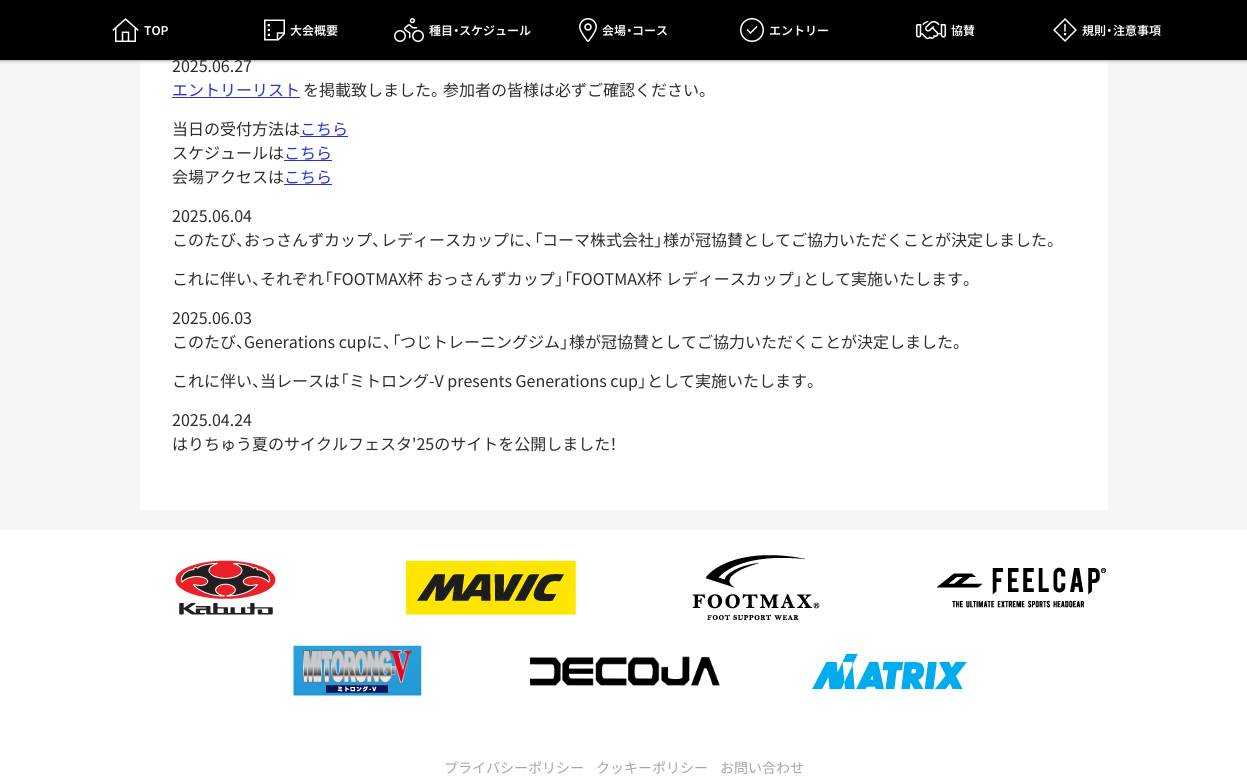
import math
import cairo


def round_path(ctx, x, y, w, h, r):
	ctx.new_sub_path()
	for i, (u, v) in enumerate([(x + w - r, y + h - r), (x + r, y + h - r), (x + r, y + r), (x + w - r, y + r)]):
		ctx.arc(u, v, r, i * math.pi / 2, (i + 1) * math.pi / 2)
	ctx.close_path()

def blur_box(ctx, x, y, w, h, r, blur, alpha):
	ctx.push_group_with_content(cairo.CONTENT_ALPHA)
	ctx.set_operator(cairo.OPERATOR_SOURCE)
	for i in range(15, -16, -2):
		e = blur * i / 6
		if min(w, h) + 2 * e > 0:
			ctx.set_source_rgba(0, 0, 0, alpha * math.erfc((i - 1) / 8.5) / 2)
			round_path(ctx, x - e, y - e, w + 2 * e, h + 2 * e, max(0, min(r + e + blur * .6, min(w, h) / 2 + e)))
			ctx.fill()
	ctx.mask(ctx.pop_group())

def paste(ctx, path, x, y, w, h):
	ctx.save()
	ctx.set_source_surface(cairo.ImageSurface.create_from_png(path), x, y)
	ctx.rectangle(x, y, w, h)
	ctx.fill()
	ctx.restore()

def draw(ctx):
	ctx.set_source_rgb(0.961, 0.961, 0.961)
	ctx.paint()
	ctx.set_source_rgb(1, 1, 1)
	ctx.rectangle(140, 60, 968, 450)
	ctx.fill()
	ctx.set_source_rgb(0.647, 0.647, 0.647)
	blur_box(ctx, 0, 1, 1247, 60, 0, 1.5, 1)
	ctx.set_source_rgb(0, 0, 0)
	ctx.rectangle(0, 0, 1247, 60)
	ctx.fill()
	paste(ctx, 'media/1.png', 112, 18, 27, 24)
	ctx.select_font_face('Noto Sans JP SemiBold')
	ctx.set_font_size(12)
	ctx.set_source_rgb(1, 1, 1)
	ctx.move_to(144, 35)
	ctx.show_text('TOP')
	paste(ctx, 'media/2.png', 264, 19, 21, 22)
	ctx.move_to(290, 35)
	ctx.show_text('大会概要')
	paste(ctx, 'media/3.png', 394, 18, 30, 24)
	ctx.move_to(429, 35)
	ctx.show_text('種目')
	ctx.select_font_face('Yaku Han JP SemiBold')
	ctx.move_to(453, 35)
	ctx.show_text('・')
	ctx.select_font_face('Noto Sans JP SemiBold')
	ctx.move_to(459, 35)
	ctx.show_text('スケジュール')
	paste(ctx, 'media/4.png', 579, 18, 18, 24)
	ctx.move_to(602, 35)
	ctx.show_text('会場')
	ctx.select_font_face('Yaku Han JP SemiBold')
	ctx.move_to(626, 35)
	ctx.show_text('・')
	ctx.select_font_face('Noto Sans JP SemiBold')
	ctx.move_to(632, 35)
	ctx.show_text('コース')
	paste(ctx, 'media/5.png', 740, 18, 24, 24)
	ctx.move_to(769, 35)
	ctx.show_text('エントリー')
	paste(ctx, 'media/6.png', 916, 21, 30, 19)
	ctx.move_to(951, 35)
	ctx.show_text('協賛')
	paste(ctx, 'media/7.png', 1053, 18, 24, 24)
	ctx.move_to(1082, 35)
	ctx.show_text('規則')
	ctx.select_font_face('Yaku Han JP SemiBold')
	ctx.move_to(1106, 35)
	ctx.show_text('・')
	ctx.select_font_face('Noto Sans JP SemiBold')
	ctx.move_to(1113, 35)
	ctx.show_text('注意事項')
	ctx.select_font_face('Noto Sans JP')
	ctx.set_font_size(16)
	ctx.set_source_rgb(0.188, 0.173, 0.173)
	ctx.move_to(172, 72)
	ctx.show_text('2025.06.27')
	ctx.set_source_rgb(0.149, 0.196, 0.851)
	ctx.move_to(172, 96)
	ctx.show_text('エントリーリスト')
	ctx.rectangle(172, 97, 128, 1)
	ctx.fill()
	ctx.set_source_rgb(0.188, 0.173, 0.173)
	ctx.move_to(303, 96)
	ctx.show_text('を掲載致しました')
	ctx.select_font_face('Yaku Han JP')
	ctx.move_to(431, 96)
	ctx.show_text('。')
	ctx.select_font_face('Noto Sans JP')
	ctx.move_to(443, 96)
	ctx.show_text('参加者の皆様は必ずご確認ください')
	ctx.select_font_face('Yaku Han JP')
	ctx.move_to(699, 96)
	ctx.show_text('。')
	ctx.select_font_face('Noto Sans JP')
	ctx.move_to(172, 135)
	ctx.show_text('当日の受付方法は')
	ctx.set_source_rgb(0.149, 0.196, 0.851)
	ctx.move_to(300, 135)
	ctx.show_text('こちら')
	ctx.rectangle(300, 136, 48, 1)
	ctx.fill()
	ctx.set_source_rgb(0.188, 0.173, 0.173)
	ctx.move_to(172, 159)
	ctx.show_text('スケジュールは')
	ctx.set_source_rgb(0.149, 0.196, 0.851)
	ctx.move_to(284, 159)
	ctx.show_text('こちら')
	ctx.rectangle(284, 160, 48, 1)
	ctx.fill()
	ctx.set_source_rgb(0.188, 0.173, 0.173)
	ctx.move_to(172, 183)
	ctx.show_text('会場アクセスは')
	ctx.set_source_rgb(0.149, 0.196, 0.851)
	ctx.move_to(284, 183)
	ctx.show_text('こちら')
	ctx.rectangle(284, 184, 48, 1)
	ctx.fill()
	ctx.set_source_rgb(0.188, 0.173, 0.173)
	ctx.move_to(172, 222)
	ctx.show_text('2025.06.04')
	ctx.move_to(172, 246)
	ctx.show_text('このたび')
	ctx.select_font_face('Yaku Han JP')
	ctx.move_to(236, 246)
	ctx.show_text('、')
	ctx.select_font_face('Noto Sans JP')
	ctx.move_to(244, 246)
	ctx.show_text('おっさんずカップ')
	ctx.select_font_face('Yaku Han JP')
	ctx.move_to(372, 246)
	ctx.show_text('、')
	ctx.select_font_face('Noto Sans JP')
	ctx.move_to(381, 246)
	ctx.show_text('レディースカップに')
	ctx.select_font_face('Yaku Han JP')
	ctx.move_to(525, 246)
	ctx.show_text('、「')
	ctx.select_font_face('Noto Sans JP')
	ctx.move_to(542, 246)
	ctx.show_text('コーマ株式会社')
	ctx.select_font_face('Yaku Han JP')
	ctx.move_to(654, 246)
	ctx.show_text('」')
	ctx.select_font_face('Noto Sans JP')
	ctx.move_to(663, 246)
	ctx.show_text('様が冠協賛としてご協力いただくことが決定しました')
	ctx.select_font_face('Yaku Han JP')
	ctx.move_to(1047, 246)
	ctx.show_text('。')
	ctx.select_font_face('Noto Sans JP')
	ctx.move_to(172, 285)
	ctx.show_text('これに伴い')
	ctx.select_font_face('Yaku Han JP')
	ctx.move_to(252, 285)
	ctx.show_text('、')
	ctx.select_font_face('Noto Sans JP')
	ctx.move_to(260, 285)
	ctx.show_text('それぞれ')
	ctx.select_font_face('Yaku Han JP')
	ctx.move_to(324, 285)
	ctx.show_text('「')
	ctx.select_font_face('Noto Sans JP')
	ctx.move_to(333, 285)
	ctx.show_text('FOOTMAX杯 おっさんずカップ')
	ctx.select_font_face('Yaku Han JP')
	ctx.move_to(555, 285)
	ctx.show_text('」「')
	ctx.select_font_face('Noto Sans JP')
	ctx.move_to(572, 285)
	ctx.show_text('FOOTMAX杯 レディースカップ')
	ctx.select_font_face('Yaku Han JP')
	ctx.move_to(794, 285)
	ctx.show_text('」')
	ctx.select_font_face('Noto Sans JP')
	ctx.move_to(803, 285)
	ctx.show_text('として実施いたします')
	ctx.select_font_face('Yaku Han JP')
	ctx.move_to(963, 285)
	ctx.show_text('。')
	ctx.select_font_face('Noto Sans JP')
	ctx.move_to(172, 324)
	ctx.show_text('2025.06.03')
	ctx.move_to(172, 348)
	ctx.show_text('このたび')
	ctx.select_font_face('Yaku Han JP')
	ctx.move_to(236, 348)
	ctx.show_text('、')
	ctx.select_font_face('Noto Sans JP')
	ctx.move_to(244, 348)
	ctx.show_text('Generations cupに')
	ctx.select_font_face('Yaku Han JP')
	ctx.move_to(383, 348)
	ctx.show_text('、「')
	ctx.select_font_face('Noto Sans JP')
	ctx.move_to(400, 348)
	ctx.show_text('つじトレーニングジム')
	ctx.select_font_face('Yaku Han JP')
	ctx.move_to(560, 348)
	ctx.show_text('」')
	ctx.select_font_face('Noto Sans JP')
	ctx.move_to(569, 348)
	ctx.show_text('様が冠協賛としてご協力いただくことが決定しました')
	ctx.select_font_face('Yaku Han JP')
	ctx.move_to(953, 348)
	ctx.show_text('。')
	ctx.select_font_face('Noto Sans JP')
	ctx.move_to(172, 387)
	ctx.show_text('これに伴い')
	ctx.select_font_face('Yaku Han JP')
	ctx.move_to(252, 387)
	ctx.show_text('、')
	ctx.select_font_face('Noto Sans JP')
	ctx.move_to(260, 387)
	ctx.show_text('当レースは')
	ctx.select_font_face('Yaku Han JP')
	ctx.move_to(340, 387)
	ctx.show_text('「')
	ctx.select_font_face('Noto Sans JP')
	ctx.move_to(349, 387)
	ctx.show_text('ミトロング-V presents Generations cup')
	ctx.select_font_face('Yaku Han JP')
	ctx.move_to(638, 387)
	ctx.show_text('」')
	ctx.select_font_face('Noto Sans JP')
	ctx.move_to(647, 387)
	ctx.show_text('として実施いたします')
	ctx.select_font_face('Yaku Han JP')
	ctx.move_to(807, 387)
	ctx.show_text('。')
	ctx.select_font_face('Noto Sans JP')
	ctx.move_to(172, 426)
	ctx.show_text('2025.04.24')
	ctx.move_to(172, 450)
	ctx.show_text('はりちゅう夏のサイクルフェスタ\'25のサイトを公開しました')
	ctx.select_font_face('Yaku Han JP')
	ctx.move_to(610, 450)
	ctx.show_text('！')
	ctx.set_source_rgb(1, 1, 1)
	ctx.rectangle(0, 530, 1247, 248)
	ctx.fill()
	paste(ctx, 'media/8.png', 175, 560, 101, 55)
	paste(ctx, 'media/9.png', 406, 560, 170, 55)
	paste(ctx, 'media/10.png', 692, 555, 128, 65)
	paste(ctx, 'media/11.png', 937, 567, 169, 41)
	paste(ctx, 'media/12.png', 293, 645, 129, 51)
	paste(ctx, 'media/13.png', 529, 656, 191, 30)
	paste(ctx, 'media/14.png', 812, 653, 155, 37)
	ctx.select_font_face('Noto Sans JP')
	ctx.set_font_size(14)
	ctx.set_source_rgb(0.647, 0.647, 0.647)
	for x, y, s in [
		(444, 773, 'プライバシーポリシー'),
		(596, 773, 'クッキーポリシー'),
		(720, 773, 'お問い合わせ'),
	]:
		ctx.move_to(x, y)
		ctx.show_text(s)


surface = cairo.ImageSurface(cairo.FORMAT_RGB24, 1247, 778)
ctx = cairo.Context(surface)
options = cairo.FontOptions()
options.set_hint_metrics(cairo.HINT_METRICS_OFF)
options.set_hint_style(cairo.HINT_STYLE_NONE)
ctx.set_font_options(options)
ctx.set_miter_limit(4)
draw(ctx)
surface.write_to_png('image.png')
